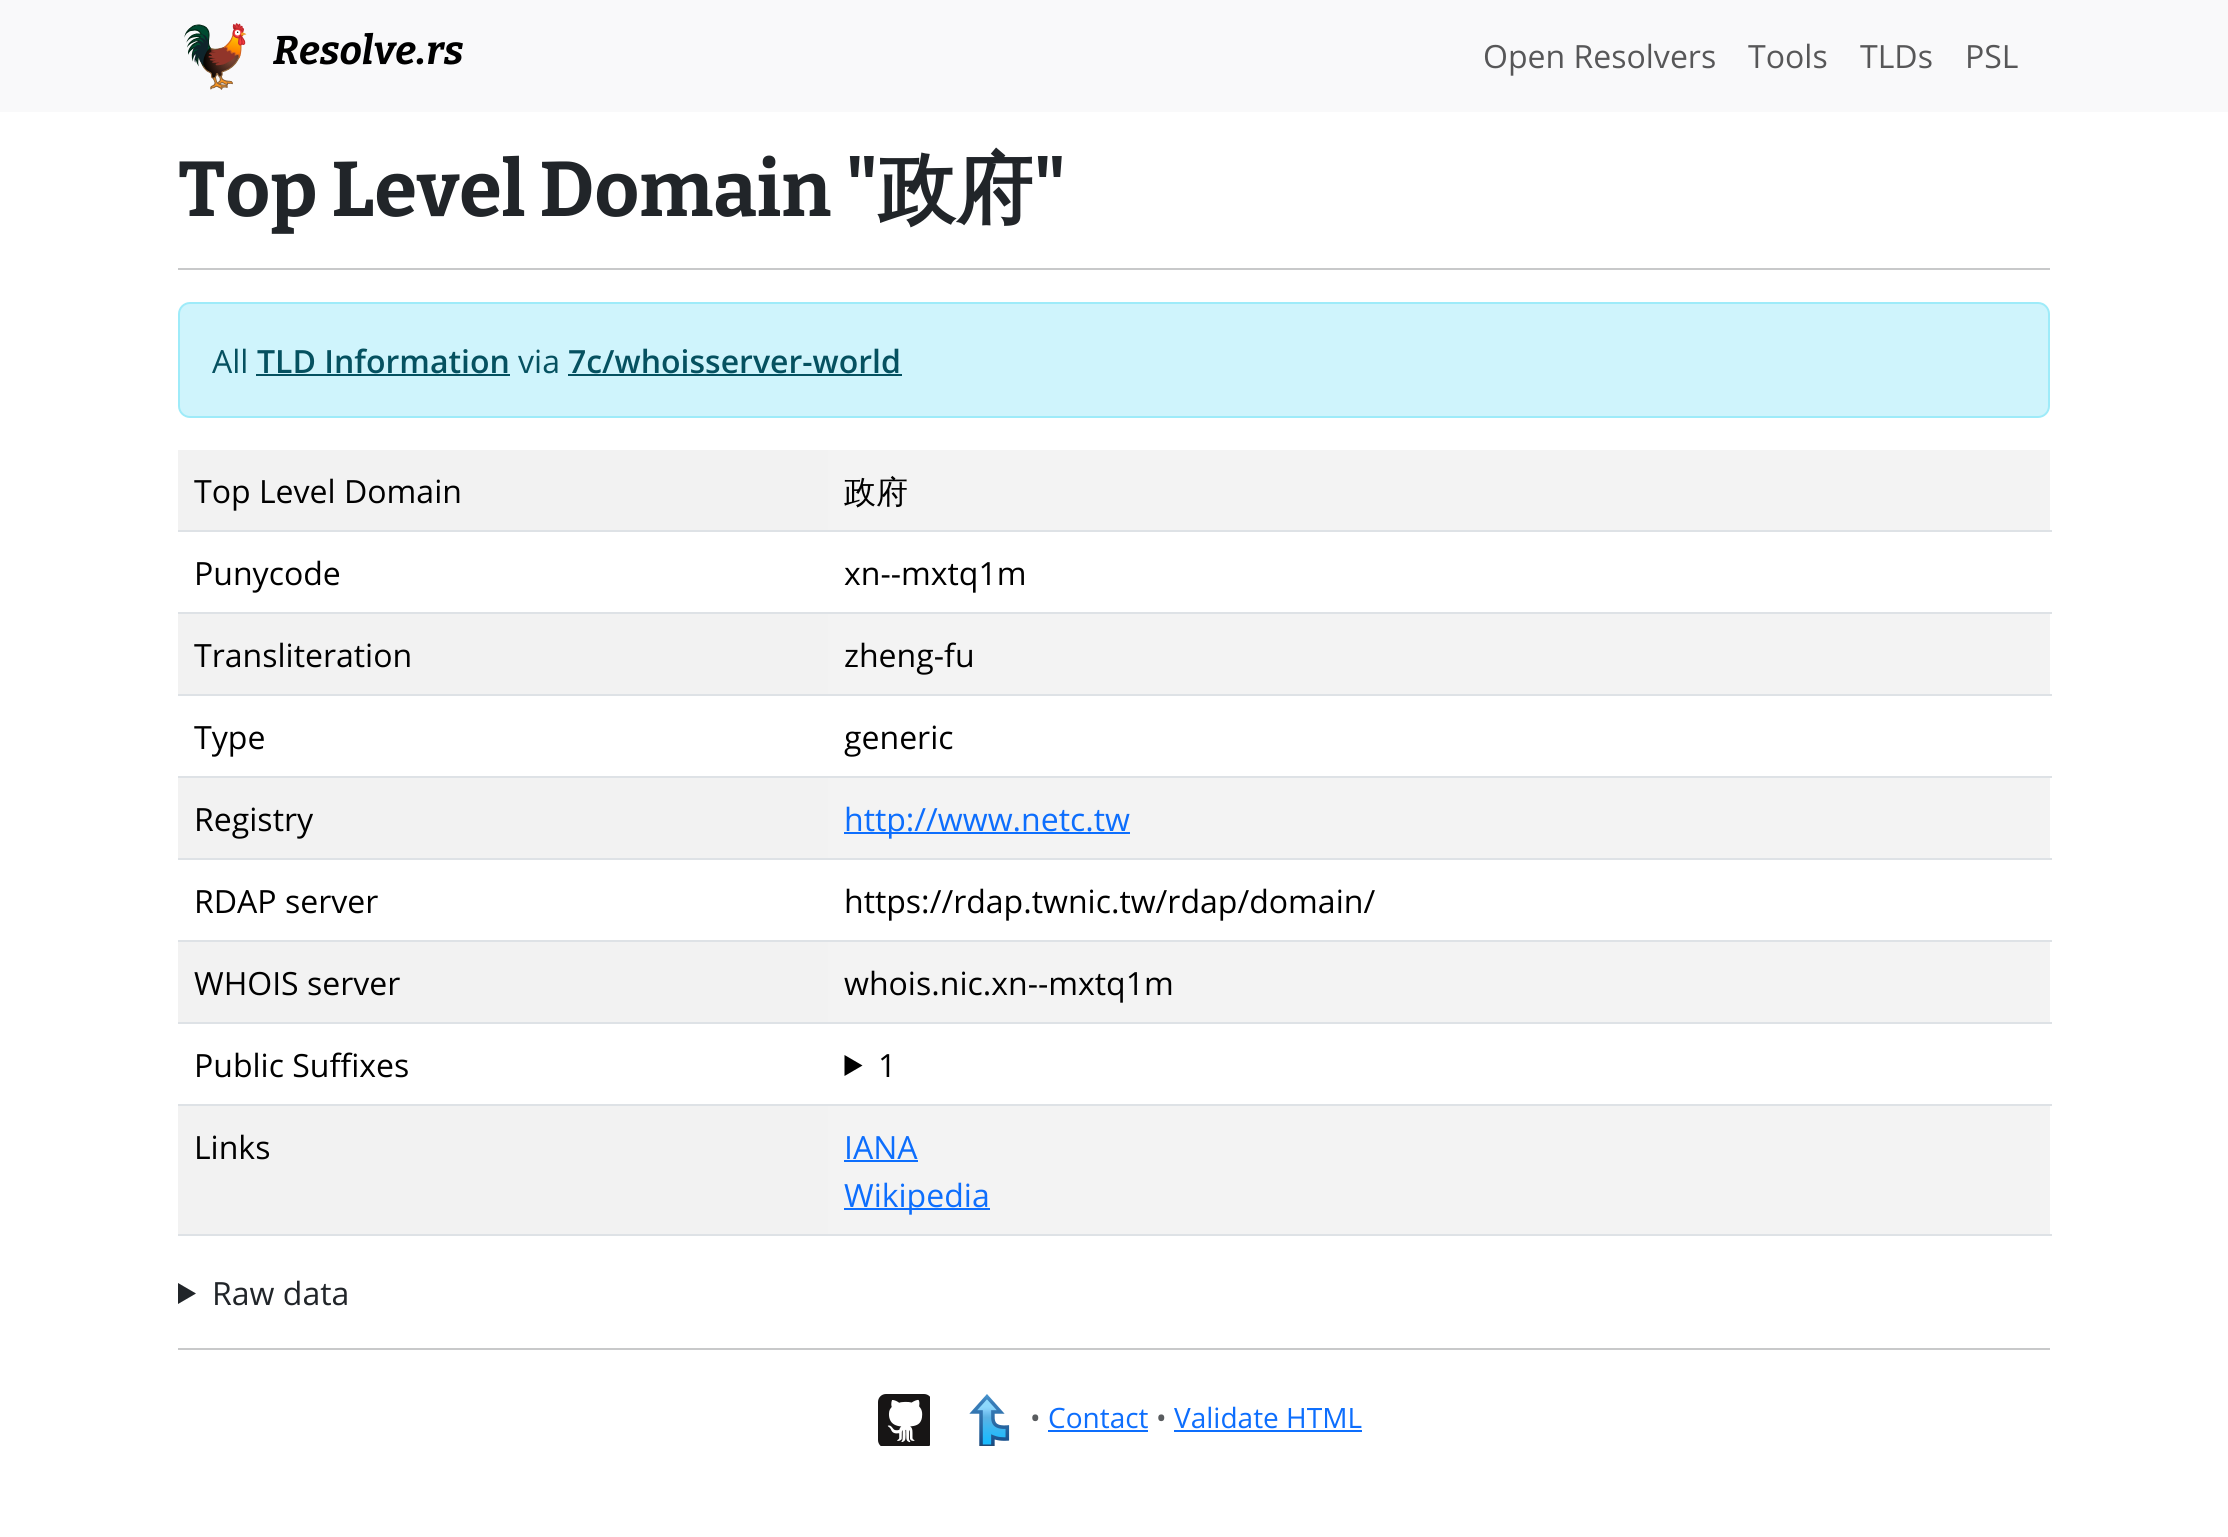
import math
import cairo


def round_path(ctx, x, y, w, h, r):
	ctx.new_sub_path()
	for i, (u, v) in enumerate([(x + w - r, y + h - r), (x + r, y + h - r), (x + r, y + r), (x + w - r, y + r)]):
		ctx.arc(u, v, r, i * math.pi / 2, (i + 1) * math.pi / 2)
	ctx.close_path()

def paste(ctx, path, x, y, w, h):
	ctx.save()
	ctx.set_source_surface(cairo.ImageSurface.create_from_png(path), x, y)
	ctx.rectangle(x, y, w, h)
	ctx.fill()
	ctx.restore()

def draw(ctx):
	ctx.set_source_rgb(1, 1, 1)
	ctx.paint()
	ctx.set_source_rgb(0.973, 0.976, 0.98)
	ctx.rectangle(0, 0, 2228, 112)
	ctx.fill()
	paste(ctx, 'media/1.png', 184, 23, 63, 67)
	ctx.select_font_face('Bitter Thin', cairo.FONT_SLANT_ITALIC)
	ctx.set_font_size(40)
	ctx.set_source_rgb(0, 0, 0)
	ctx.move_to(273, 64)
	ctx.show_text('Resolve.rs')
	ctx.select_font_face('Open Sans')
	ctx.set_font_size(32)
	ctx.set_source_rgb(0.341, 0.341, 0.345)
	for x, y, s in [
		(1483, 68, 'Open Resolvers'),
		(1748, 68, 'Tools'),
		(1860, 68, 'TLDs'),
		(1965, 68, 'PSL'),
	]:
		ctx.move_to(x, y)
		ctx.show_text(s)
	ctx.select_font_face('Bitter Thin')
	ctx.set_font_size(77.5)
	ctx.set_source_rgb(0.129, 0.145, 0.161)
	ctx.move_to(178, 216)
	ctx.show_text('Top Level Domain "')
	ctx.select_font_face('WenQuanYi Zen Hei', cairo.FONT_SLANT_NORMAL, cairo.FONT_WEIGHT_BOLD)
	ctx.move_to(878, 216)
	ctx.show_text('政府')
	ctx.select_font_face('Bitter Thin')
	ctx.move_to(1033, 216)
	ctx.show_text('"')
	ctx.set_source_rgb(0.784, 0.788, 0.792)
	ctx.rectangle(178, 268, 1872, 2)
	ctx.fill()
	ctx.set_source_rgb(0.812, 0.957, 0.988)
	round_path(ctx, 179, 303, 1870, 114, 11)
	ctx.fill_preserve()
	ctx.set_source_rgb(0.62, 0.918, 0.976)
	ctx.stroke()
	ctx.select_font_face('Open Sans')
	ctx.set_font_size(32)
	ctx.set_source_rgb(0.02, 0.318, 0.376)
	ctx.move_to(212, 373)
	ctx.show_text('All')
	ctx.select_font_face('Open Sans SemiBold')
	ctx.move_to(257, 373)
	ctx.show_text('TLD Information')
	ctx.rectangle(256, 374, 254, 2)
	ctx.fill()
	ctx.select_font_face('Open Sans')
	ctx.move_to(518, 373)
	ctx.show_text('via')
	ctx.select_font_face('Open Sans SemiBold')
	ctx.move_to(568, 373)
	ctx.show_text('7c/whoisserver-world')
	ctx.rectangle(568, 374, 334, 2)
	ctx.fill()
	ctx.set_source_rgb(0.871, 0.886, 0.902)
	ctx.rectangle(178, 1234, 1874, 2)
	ctx.fill()
	ctx.set_source_rgb(0.949, 0.949, 0.949)
	ctx.rectangle(178, 450, 650, 80)
	ctx.fill()
	ctx.select_font_face('Open Sans')
	ctx.set_source_rgb(0, 0, 0)
	ctx.move_to(194, 503)
	ctx.show_text('Top Level Domain')
	ctx.set_source_rgb(0.953, 0.953, 0.953)
	ctx.rectangle(828, 450, 1222, 80)
	ctx.fill()
	ctx.set_source_rgb(0.871, 0.886, 0.902)
	ctx.rectangle(178, 530, 1874, 2)
	ctx.fill()
	ctx.select_font_face('WenQuanYi Zen Hei Medium')
	ctx.set_source_rgb(0, 0, 0)
	ctx.move_to(844, 503)
	ctx.show_text('政府')
	ctx.select_font_face('Open Sans')
	ctx.move_to(194, 585)
	ctx.show_text('Punycode')
	ctx.set_source_rgb(0.871, 0.886, 0.902)
	ctx.rectangle(178, 612, 1874, 2)
	ctx.fill()
	ctx.set_source_rgb(0, 0, 0)
	ctx.move_to(844, 585)
	ctx.show_text('xn--mxtq1m')
	ctx.set_source_rgb(0.949, 0.949, 0.949)
	ctx.rectangle(178, 614, 650, 80)
	ctx.fill()
	ctx.set_source_rgb(0, 0, 0)
	ctx.move_to(194, 667)
	ctx.show_text('Transliteration')
	ctx.set_source_rgb(0.953, 0.953, 0.953)
	ctx.rectangle(828, 614, 1222, 80)
	ctx.fill()
	ctx.set_source_rgb(0.871, 0.886, 0.902)
	ctx.rectangle(178, 694, 1874, 2)
	ctx.fill()
	ctx.set_source_rgb(0, 0, 0)
	ctx.move_to(844, 667)
	ctx.show_text('zheng-fu')
	ctx.move_to(194, 749)
	ctx.show_text('Type')
	ctx.set_source_rgb(0.871, 0.886, 0.902)
	ctx.rectangle(178, 776, 1874, 2)
	ctx.fill()
	ctx.set_source_rgb(0, 0, 0)
	ctx.move_to(844, 749)
	ctx.show_text('generic')
	ctx.set_source_rgb(0.949, 0.949, 0.949)
	ctx.rectangle(178, 778, 650, 80)
	ctx.fill()
	ctx.set_source_rgb(0, 0, 0)
	ctx.move_to(194, 831)
	ctx.show_text('Registry')
	ctx.set_source_rgb(0.953, 0.953, 0.953)
	ctx.rectangle(828, 778, 1222, 80)
	ctx.fill()
	ctx.set_source_rgb(0.871, 0.886, 0.902)
	ctx.rectangle(178, 858, 1874, 2)
	ctx.fill()
	ctx.set_source_rgb(0.051, 0.431, 0.992)
	ctx.rectangle(844, 832, 286, 2)
	ctx.fill()
	ctx.move_to(844, 831)
	ctx.show_text('http://www.netc.tw')
	ctx.set_source_rgb(0, 0, 0)
	ctx.move_to(194, 913)
	ctx.show_text('RDAP server')
	ctx.set_source_rgb(0.871, 0.886, 0.902)
	ctx.rectangle(178, 940, 1874, 2)
	ctx.fill()
	ctx.set_source_rgb(0, 0, 0)
	ctx.move_to(844, 913)
	ctx.show_text('https://rdap.twnic.tw/rdap/domain/')
	ctx.set_source_rgb(0.949, 0.949, 0.949)
	ctx.rectangle(178, 942, 650, 80)
	ctx.fill()
	ctx.set_source_rgb(0, 0, 0)
	ctx.move_to(194, 995)
	ctx.show_text('WHOIS server')
	ctx.set_source_rgb(0.953, 0.953, 0.953)
	ctx.rectangle(828, 942, 1222, 80)
	ctx.fill()
	ctx.set_source_rgb(0.871, 0.886, 0.902)
	ctx.rectangle(178, 1022, 1874, 2)
	ctx.fill()
	ctx.set_source_rgb(0, 0, 0)
	ctx.move_to(844, 995)
	ctx.show_text('whois.nic.xn--mxtq1m')
	ctx.move_to(194, 1077)
	ctx.show_text('Public Suffixes')
	ctx.set_source_rgb(0.871, 0.886, 0.902)
	ctx.rectangle(178, 1104, 1874, 2)
	ctx.fill()
	ctx.set_source_rgb(0, 0, 0)
	ctx.new_path()
	ctx.move_to(844.5, 1055)
	ctx.line_to(862.5, 1065.5)
	ctx.line_to(844.5, 1076)
	ctx.close_path()
	ctx.fill()
	ctx.move_to(878, 1077)
	ctx.show_text('1')
	ctx.set_source_rgb(0.949, 0.949, 0.949)
	ctx.rectangle(178, 1106, 650, 128)
	ctx.fill()
	ctx.set_source_rgb(0, 0, 0)
	ctx.move_to(194, 1159)
	ctx.show_text('Links')
	ctx.set_source_rgb(0.953, 0.953, 0.953)
	ctx.rectangle(828, 1106, 1222, 128)
	ctx.fill()
	ctx.set_source_rgb(0.051, 0.431, 0.992)
	ctx.move_to(844, 1159)
	ctx.show_text('IANA')
	ctx.rectangle(844, 1160, 74, 2)
	ctx.fill()
	ctx.rectangle(844, 1208, 146, 2)
	ctx.fill()
	ctx.move_to(844, 1207)
	ctx.show_text('Wikipedia')
	ctx.set_source_rgb(0.129, 0.145, 0.161)
	ctx.new_path()
	ctx.move_to(178, 1283)
	ctx.line_to(196, 1293.5)
	ctx.line_to(178, 1304)
	ctx.close_path()
	ctx.fill()
	ctx.move_to(212, 1305)
	ctx.show_text('Raw data')
	ctx.set_source_rgb(0.784, 0.788, 0.792)
	ctx.rectangle(178, 1348, 1872, 2)
	ctx.fill()
	paste(ctx, 'media/2.png', 878, 1394, 52, 52)
	paste(ctx, 'media/3.png', 969, 1394, 41, 52)
	ctx.set_font_size(28)
	ctx.set_source_rgb(0.349, 0.361, 0.373)
	ctx.move_to(1030, 1428)
	ctx.show_text('•')
	ctx.set_source_rgb(0.051, 0.431, 0.992)
	ctx.move_to(1048, 1428)
	ctx.show_text('Contact')
	ctx.rectangle(1048, 1430, 100, 2)
	ctx.fill()
	ctx.set_source_rgb(0.349, 0.361, 0.373)
	ctx.move_to(1156, 1428)
	ctx.show_text('•')
	ctx.set_source_rgb(0.051, 0.431, 0.992)
	ctx.move_to(1174, 1428)
	ctx.show_text('Validate HTML')
	ctx.rectangle(1174, 1430, 188, 2)
	ctx.fill()


surface = cairo.ImageSurface(cairo.FORMAT_RGB24, 2228, 1537)
ctx = cairo.Context(surface)
options = cairo.FontOptions()
options.set_hint_metrics(cairo.HINT_METRICS_OFF)
options.set_hint_style(cairo.HINT_STYLE_NONE)
ctx.set_font_options(options)
ctx.set_miter_limit(4)
draw(ctx)
surface.write_to_png('image.png')
